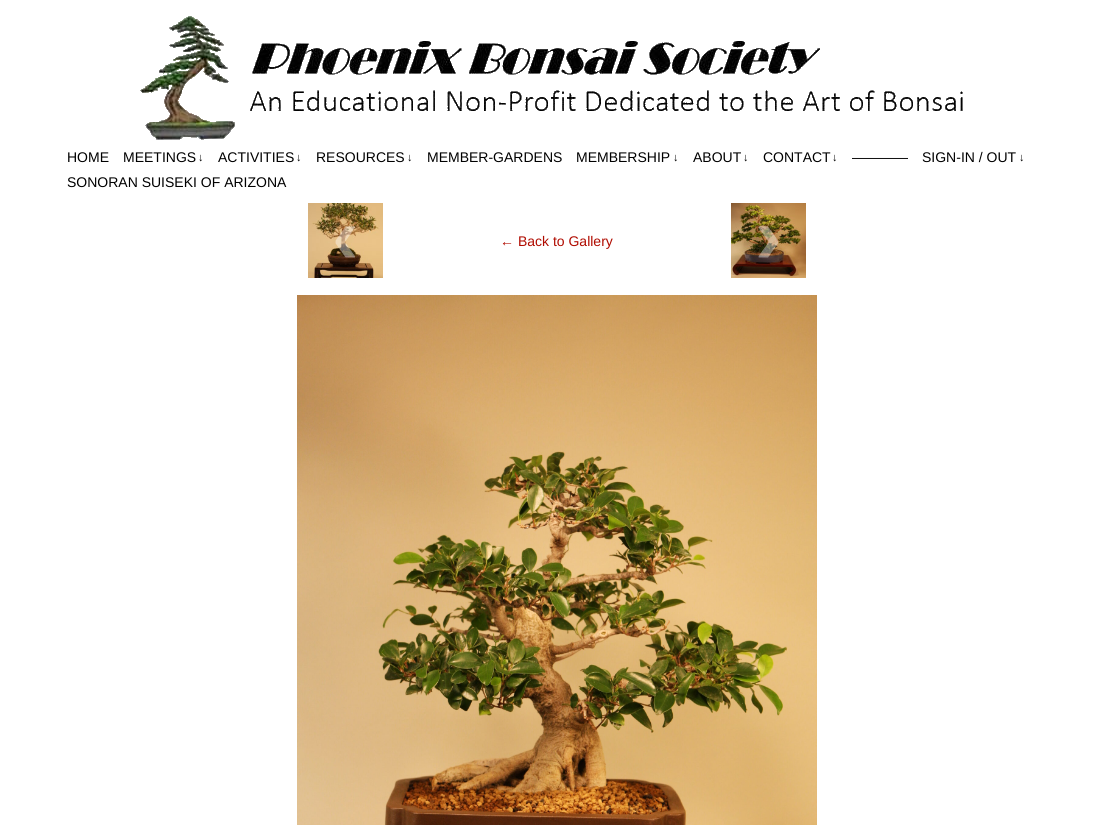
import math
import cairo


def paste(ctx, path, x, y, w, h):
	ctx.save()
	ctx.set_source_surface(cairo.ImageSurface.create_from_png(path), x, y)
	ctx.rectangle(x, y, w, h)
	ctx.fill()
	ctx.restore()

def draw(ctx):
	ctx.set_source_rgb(1, 1, 1)
	ctx.paint()
	paste(ctx, 'media/1.png', 140, 16, 823, 124)
	ctx.select_font_face('Liberation Sans')
	ctx.set_font_size(14)
	ctx.set_source_rgb(0, 0, 0)
	ctx.move_to(67, 162)
	ctx.show_text('HOME')
	ctx.move_to(123, 162)
	ctx.show_text('MEETINGS')
	ctx.set_font_size(11)
	ctx.move_to(198, 161)
	ctx.show_text('↓')
	ctx.set_font_size(14)
	ctx.move_to(218, 162)
	ctx.show_text('ACTIVITIES')
	ctx.set_font_size(11)
	ctx.move_to(296, 161)
	ctx.show_text('↓')
	ctx.set_font_size(14)
	ctx.move_to(316, 162)
	ctx.show_text('RESOURCES')
	ctx.set_font_size(11)
	ctx.move_to(407, 161)
	ctx.show_text('↓')
	ctx.set_font_size(14)
	ctx.move_to(427, 162)
	ctx.show_text('MEMBER-GARDENS')
	ctx.move_to(576, 162)
	ctx.show_text('MEMBERSHIP')
	ctx.set_font_size(11)
	ctx.move_to(673, 161)
	ctx.show_text('↓')
	ctx.set_font_size(14)
	ctx.move_to(693, 162)
	ctx.show_text('ABOUT')
	ctx.set_font_size(11)
	ctx.move_to(743, 161)
	ctx.show_text('↓')
	ctx.set_font_size(14)
	ctx.move_to(763, 162)
	ctx.show_text('CONTACT')
	ctx.set_font_size(11)
	ctx.move_to(832, 161)
	ctx.show_text('↓')
	ctx.set_font_size(14)
	ctx.move_to(852, 162)
	ctx.show_text('————')
	ctx.move_to(922, 162)
	ctx.show_text('SIGN-IN / OUT')
	ctx.set_font_size(11)
	ctx.move_to(1019, 161)
	ctx.show_text('↓')
	ctx.set_font_size(14)
	ctx.move_to(67, 187)
	ctx.show_text('SONORAN SUISEKI OF ARIZONA')
	paste(ctx, 'media/2.png', 308, 203, 75, 75)
	ctx.select_font_face('Liberation Sans', cairo.FONT_SLANT_NORMAL, cairo.FONT_WEIGHT_BOLD)
	ctx.set_font_size(80)
	ctx.set_source_rgb(1, 1, 1)
	ctx.move_to(332, 263)
	ctx.show_text('‹')
	paste(ctx, 'media/3.png', 335, 226, 21, 32)
	ctx.select_font_face('Liberation Sans')
	ctx.set_font_size(14)
	ctx.set_source_rgb(0.69, 0.043, 0)
	ctx.move_to(500, 246)
	ctx.show_text('← Back to Gallery')
	paste(ctx, 'media/4.png', 731, 203, 75, 75)
	ctx.select_font_face('Liberation Sans', cairo.FONT_SLANT_NORMAL, cairo.FONT_WEIGHT_BOLD)
	ctx.set_font_size(80)
	ctx.set_source_rgb(1, 1, 1)
	ctx.move_to(755, 263)
	ctx.show_text('›')
	paste(ctx, 'media/5.png', 758, 226, 21, 32)
	paste(ctx, 'media/6.png', 297, 295, 520, 530)


surface = cairo.ImageSurface(cairo.FORMAT_RGB24, 1114, 825)
ctx = cairo.Context(surface)
options = cairo.FontOptions()
options.set_hint_metrics(cairo.HINT_METRICS_OFF)
options.set_hint_style(cairo.HINT_STYLE_NONE)
ctx.set_font_options(options)
ctx.set_miter_limit(4)
draw(ctx)
surface.write_to_png('image.png')
